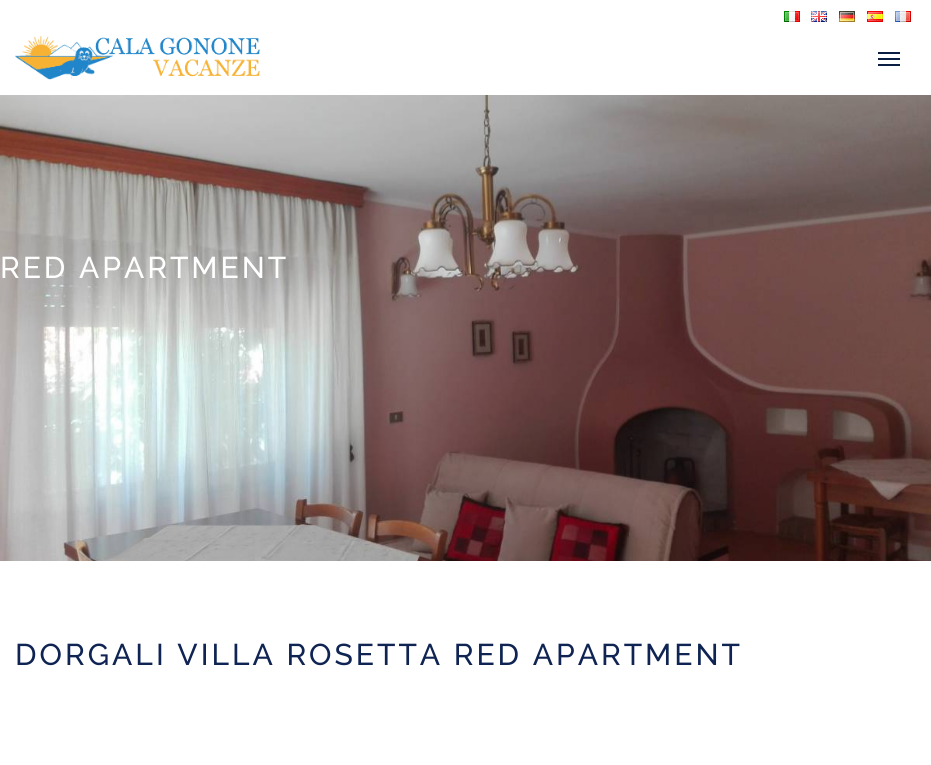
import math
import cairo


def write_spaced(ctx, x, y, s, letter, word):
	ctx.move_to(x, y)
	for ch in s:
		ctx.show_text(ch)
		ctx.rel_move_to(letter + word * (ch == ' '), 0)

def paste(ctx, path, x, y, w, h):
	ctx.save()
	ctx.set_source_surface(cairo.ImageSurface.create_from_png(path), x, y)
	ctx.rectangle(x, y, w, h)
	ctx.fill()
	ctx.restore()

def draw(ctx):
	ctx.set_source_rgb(1, 1, 1)
	ctx.paint()
	paste(ctx, 'media/1.png', 784, 11, 16, 11)
	paste(ctx, 'media/2.png', 811, 11, 16, 11)
	paste(ctx, 'media/3.png', 839, 11, 16, 11)
	paste(ctx, 'media/4.png', 867, 11, 16, 11)
	paste(ctx, 'media/5.png', 895, 11, 16, 11)
	paste(ctx, 'media/6.png', 15, 36, 245, 44)
	ctx.set_source_rgb(0.043, 0.122, 0.271)
	ctx.rectangle(878, 58, 22, 2)
	ctx.rectangle(878, 52, 22, 2)
	ctx.rectangle(878, 64, 22, 2)
	ctx.fill()
	paste(ctx, 'media/7.png', 0, 95, 931, 466)
	ctx.select_font_face('Raleway Medium')
	ctx.set_font_size(30)
	ctx.set_source_rgb(1, 1, 1)
	write_spaced(ctx, 0, 278, 'RED APARTMENT', 3, 0)
	ctx.set_source_rgb(0.059, 0.141, 0.325)
	write_spaced(ctx, 15, 665, 'DORGALI VILLA ROSETTA RED APARTMENT', 3, 0)


surface = cairo.ImageSurface(cairo.FORMAT_RGB24, 931, 765)
ctx = cairo.Context(surface)
options = cairo.FontOptions()
options.set_hint_metrics(cairo.HINT_METRICS_OFF)
options.set_hint_style(cairo.HINT_STYLE_NONE)
ctx.set_font_options(options)
ctx.set_miter_limit(4)
draw(ctx)
surface.write_to_png('image.png')
